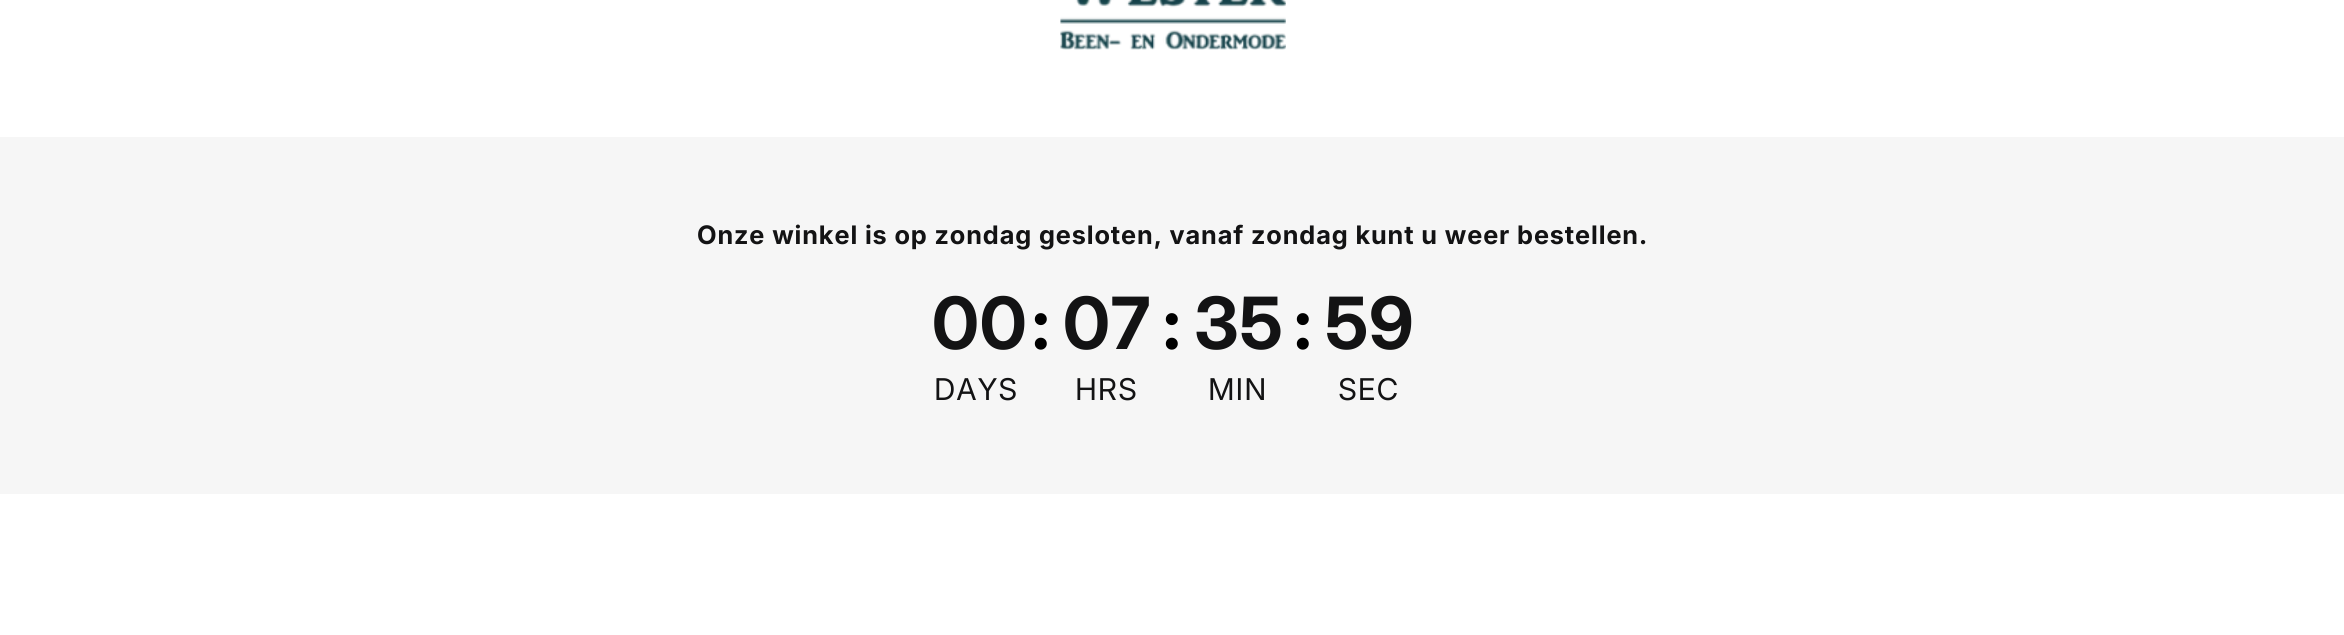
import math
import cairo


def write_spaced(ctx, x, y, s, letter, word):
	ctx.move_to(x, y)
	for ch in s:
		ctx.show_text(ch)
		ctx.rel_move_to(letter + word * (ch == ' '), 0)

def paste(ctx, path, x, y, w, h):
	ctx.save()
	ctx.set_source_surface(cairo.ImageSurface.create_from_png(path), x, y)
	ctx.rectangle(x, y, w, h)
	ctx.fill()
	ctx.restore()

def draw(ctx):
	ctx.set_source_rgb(1, 1, 1)
	ctx.paint()
	paste(ctx, 'media/1.png', 1060, 0, 226, 50)
	ctx.set_source_rgb(0.961, 0.961, 0.961)
	ctx.rectangle(0, 137, 2344, 357)
	ctx.fill()
	ctx.select_font_face('Inter', cairo.FONT_SLANT_NORMAL, cairo.FONT_WEIGHT_BOLD)
	ctx.set_font_size(25.5)
	ctx.set_source_rgb(0.075, 0.075, 0.082)
	write_spaced(ctx, 697, 244, 'Onze winkel is op zondag gesloten, vanaf zondag kunt u weer bestellen.', 0.9, 0)
	ctx.select_font_face('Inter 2', cairo.FONT_SLANT_NORMAL, cairo.FONT_WEIGHT_BOLD)
	ctx.set_font_size(72)
	write_spaced(ctx, 932, 349, '00', 0.9, 0)
	ctx.select_font_face('Inter')
	ctx.set_font_size(30)
	write_spaced(ctx, 934, 400, 'DAYS', 0.9, 0)
	ctx.select_font_face('Inter 2', cairo.FONT_SLANT_NORMAL, cairo.FONT_WEIGHT_BOLD)
	ctx.set_font_size(72)
	ctx.set_source_rgb(0, 0, 0)
	write_spaced(ctx, 1032, 349, ':', 0.9, 0)
	ctx.set_source_rgb(0.075, 0.075, 0.082)
	write_spaced(ctx, 1063, 349, '07', 0.9, 0)
	ctx.select_font_face('Inter')
	ctx.set_font_size(30)
	write_spaced(ctx, 1075, 400, 'HRS', 0.9, 0)
	ctx.select_font_face('Inter 2', cairo.FONT_SLANT_NORMAL, cairo.FONT_WEIGHT_BOLD)
	ctx.set_font_size(72)
	ctx.set_source_rgb(0, 0, 0)
	write_spaced(ctx, 1163, 349, ':', 0.9, 0)
	ctx.set_source_rgb(0.075, 0.075, 0.082)
	write_spaced(ctx, 1194, 349, '35', 0.9, 0)
	ctx.select_font_face('Inter')
	ctx.set_font_size(30)
	write_spaced(ctx, 1208, 400, 'MIN', 0.9, 0)
	ctx.select_font_face('Inter 2', cairo.FONT_SLANT_NORMAL, cairo.FONT_WEIGHT_BOLD)
	ctx.set_font_size(72)
	ctx.set_source_rgb(0, 0, 0)
	write_spaced(ctx, 1294, 349, ':', 0.9, 0)
	ctx.set_source_rgb(0.075, 0.075, 0.082)
	write_spaced(ctx, 1325, 349, '59', 0.9, 0)
	ctx.select_font_face('Inter')
	ctx.set_font_size(30)
	write_spaced(ctx, 1338, 400, 'SEC', 0.9, 0)


surface = cairo.ImageSurface(cairo.FORMAT_RGB24, 2344, 635)
ctx = cairo.Context(surface)
options = cairo.FontOptions()
options.set_hint_metrics(cairo.HINT_METRICS_OFF)
options.set_hint_style(cairo.HINT_STYLE_NONE)
ctx.set_font_options(options)
ctx.set_miter_limit(4)
draw(ctx)
surface.write_to_png('image.png')
